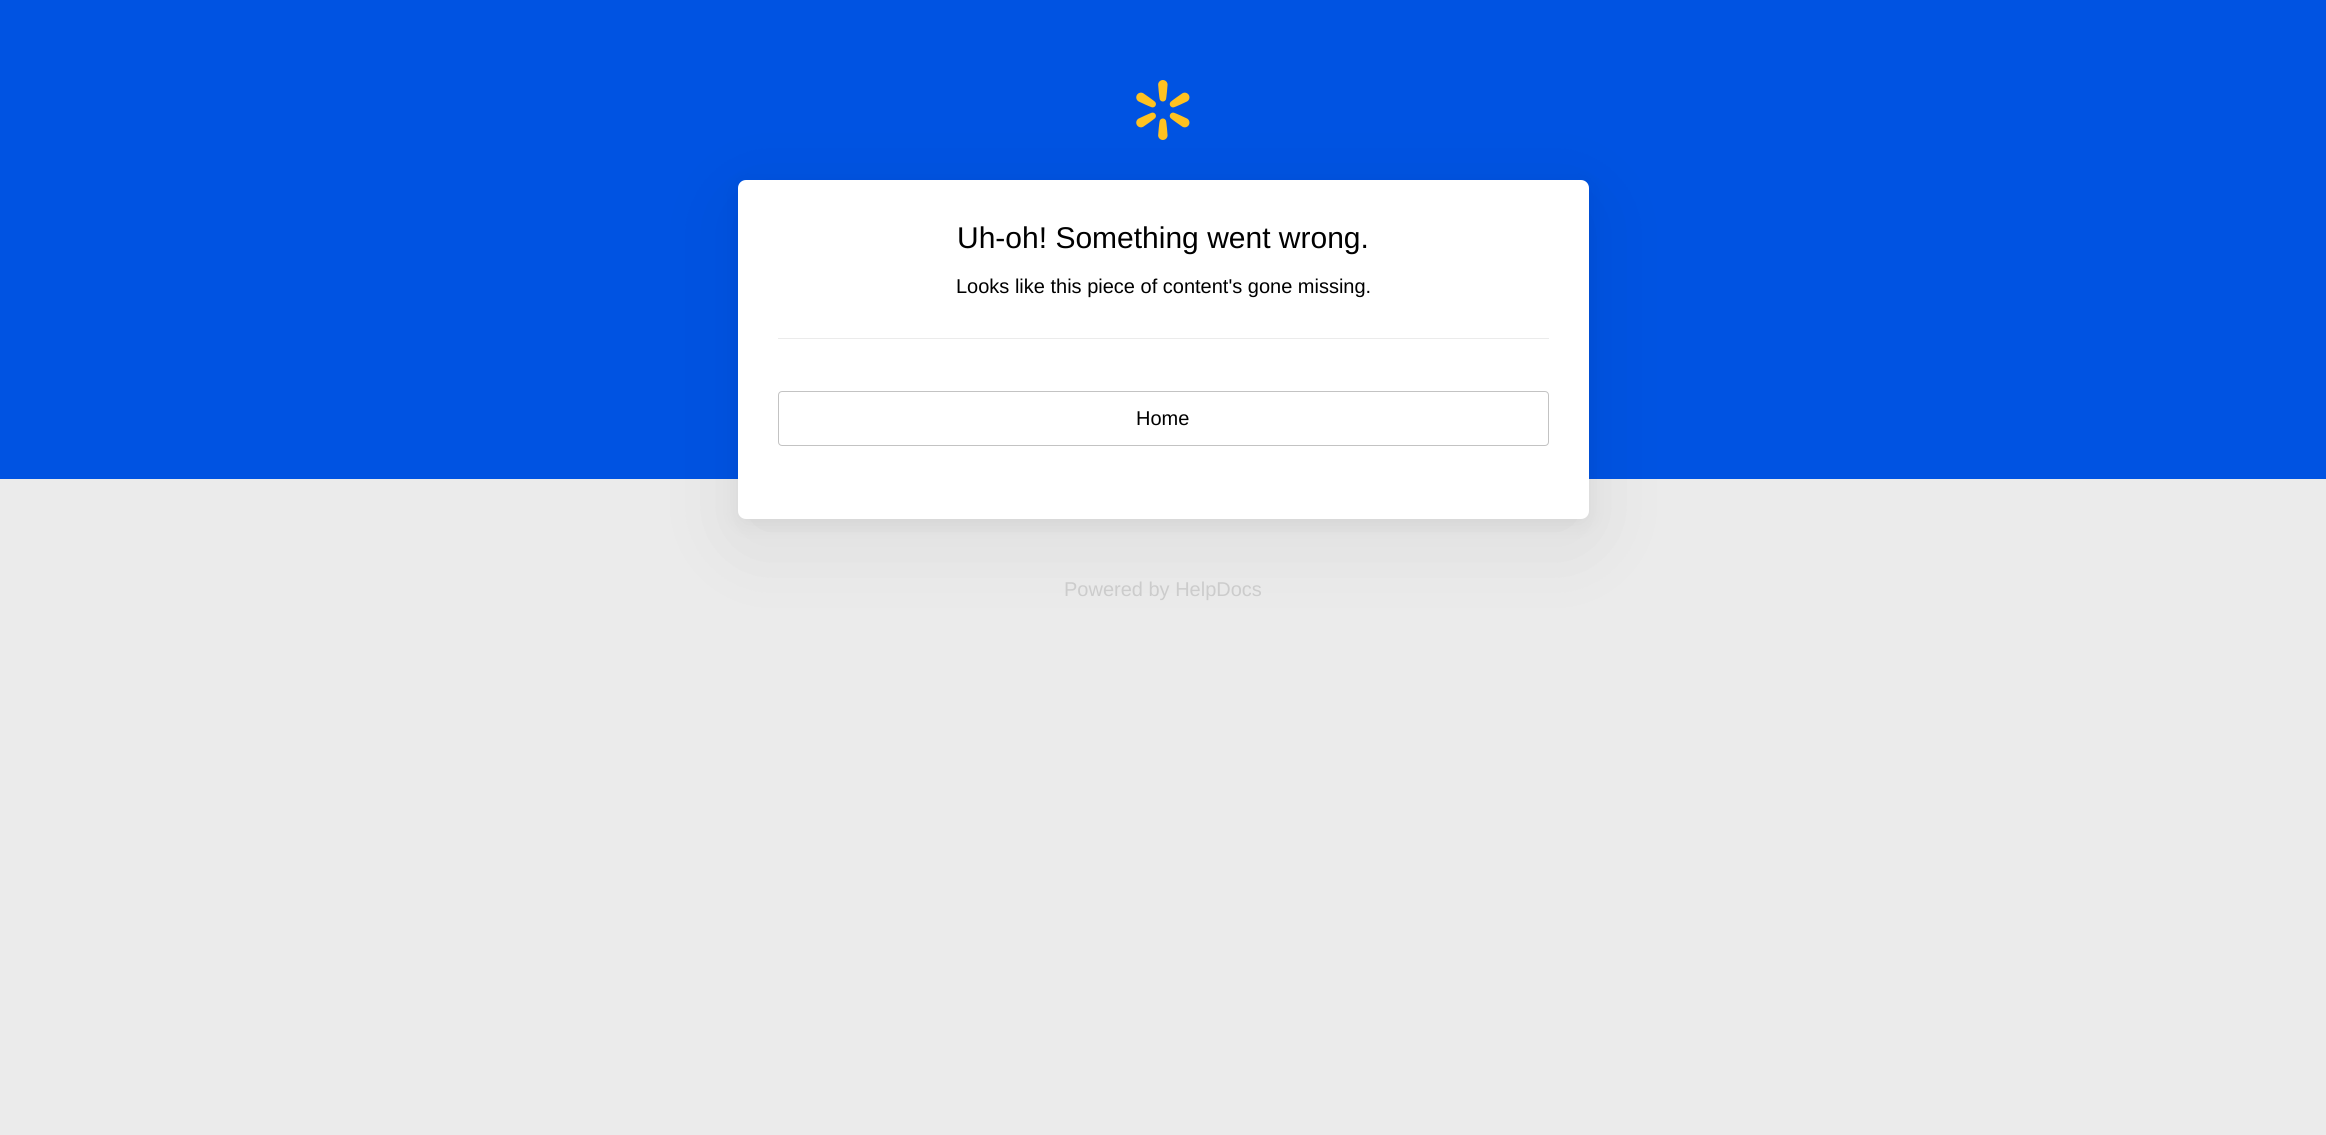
import math
import cairo


def round_path(ctx, x, y, w, h, r):
	ctx.new_sub_path()
	for i, (u, v) in enumerate([(x + w - r, y + h - r), (x + r, y + h - r), (x + r, y + r), (x + w - r, y + r)]):
		ctx.arc(u, v, r, i * math.pi / 2, (i + 1) * math.pi / 2)
	ctx.close_path()

def blur_box(ctx, x, y, w, h, r, blur, alpha):
	ctx.push_group_with_content(cairo.CONTENT_ALPHA)
	ctx.set_operator(cairo.OPERATOR_SOURCE)
	for i in range(15, -16, -2):
		e = blur * i / 6
		if min(w, h) + 2 * e > 0:
			ctx.set_source_rgba(0, 0, 0, alpha * math.erfc((i - 1) / 8.5) / 2)
			round_path(ctx, x - e, y - e, w + 2 * e, h + 2 * e, max(0, min(r + e + blur * .6, min(w, h) / 2 + e)))
			ctx.fill()
	ctx.mask(ctx.pop_group())

def paste(ctx, path, x, y, w, h):
	ctx.save()
	ctx.set_source_surface(cairo.ImageSurface.create_from_png(path), x, y)
	ctx.rectangle(x, y, w, h)
	ctx.fill()
	ctx.restore()

def draw(ctx):
	ctx.set_source_rgb(0.918, 0.918, 0.918)
	ctx.paint()
	ctx.set_source_rgb(0, 0.325, 0.886)
	ctx.rectangle(0, 0, 2326, 479)
	ctx.fill()
	paste(ctx, 'media/1.png', 1136, 80, 54, 60)
	ctx.set_source_rgb(0, 0, 0)
	blur_box(ctx, 738, 201, 851, 339, 8, 45.5, 0.07)
	blur_box(ctx, 738, 185, 851, 339, 8, 10, 0.06)
	ctx.set_source_rgb(1, 1, 1)
	round_path(ctx, 738, 180, 851, 339, 8)
	ctx.fill()
	ctx.select_font_face('Liberation Sans')
	ctx.set_font_size(30)
	ctx.set_source_rgb(0, 0, 0)
	ctx.move_to(957, 248)
	ctx.show_text('Uh-oh! Something went wrong.')
	ctx.set_font_size(20)
	ctx.move_to(956, 293)
	ctx.show_text('Looks like this piece of content\'s gone missing.')
	ctx.set_source_rgb(0.918, 0.918, 0.918)
	ctx.rectangle(778, 338, 771, 1)
	ctx.fill()
	round_path(ctx, 778.5, 391.5, 770, 54, 3.5)
	ctx.set_source_rgb(0.765, 0.765, 0.765)
	ctx.set_line_width(1)
	ctx.stroke()
	ctx.set_source_rgb(0, 0, 0)
	ctx.move_to(1136, 425)
	ctx.show_text('Home')
	ctx.set_source_rgb(0.8, 0.8, 0.8)
	ctx.move_to(1064, 596)
	ctx.show_text('Powered by HelpDocs')


surface = cairo.ImageSurface(cairo.FORMAT_RGB24, 2326, 1135)
ctx = cairo.Context(surface)
options = cairo.FontOptions()
options.set_hint_metrics(cairo.HINT_METRICS_OFF)
options.set_hint_style(cairo.HINT_STYLE_NONE)
ctx.set_font_options(options)
ctx.set_miter_limit(4)
draw(ctx)
surface.write_to_png('image.png')
